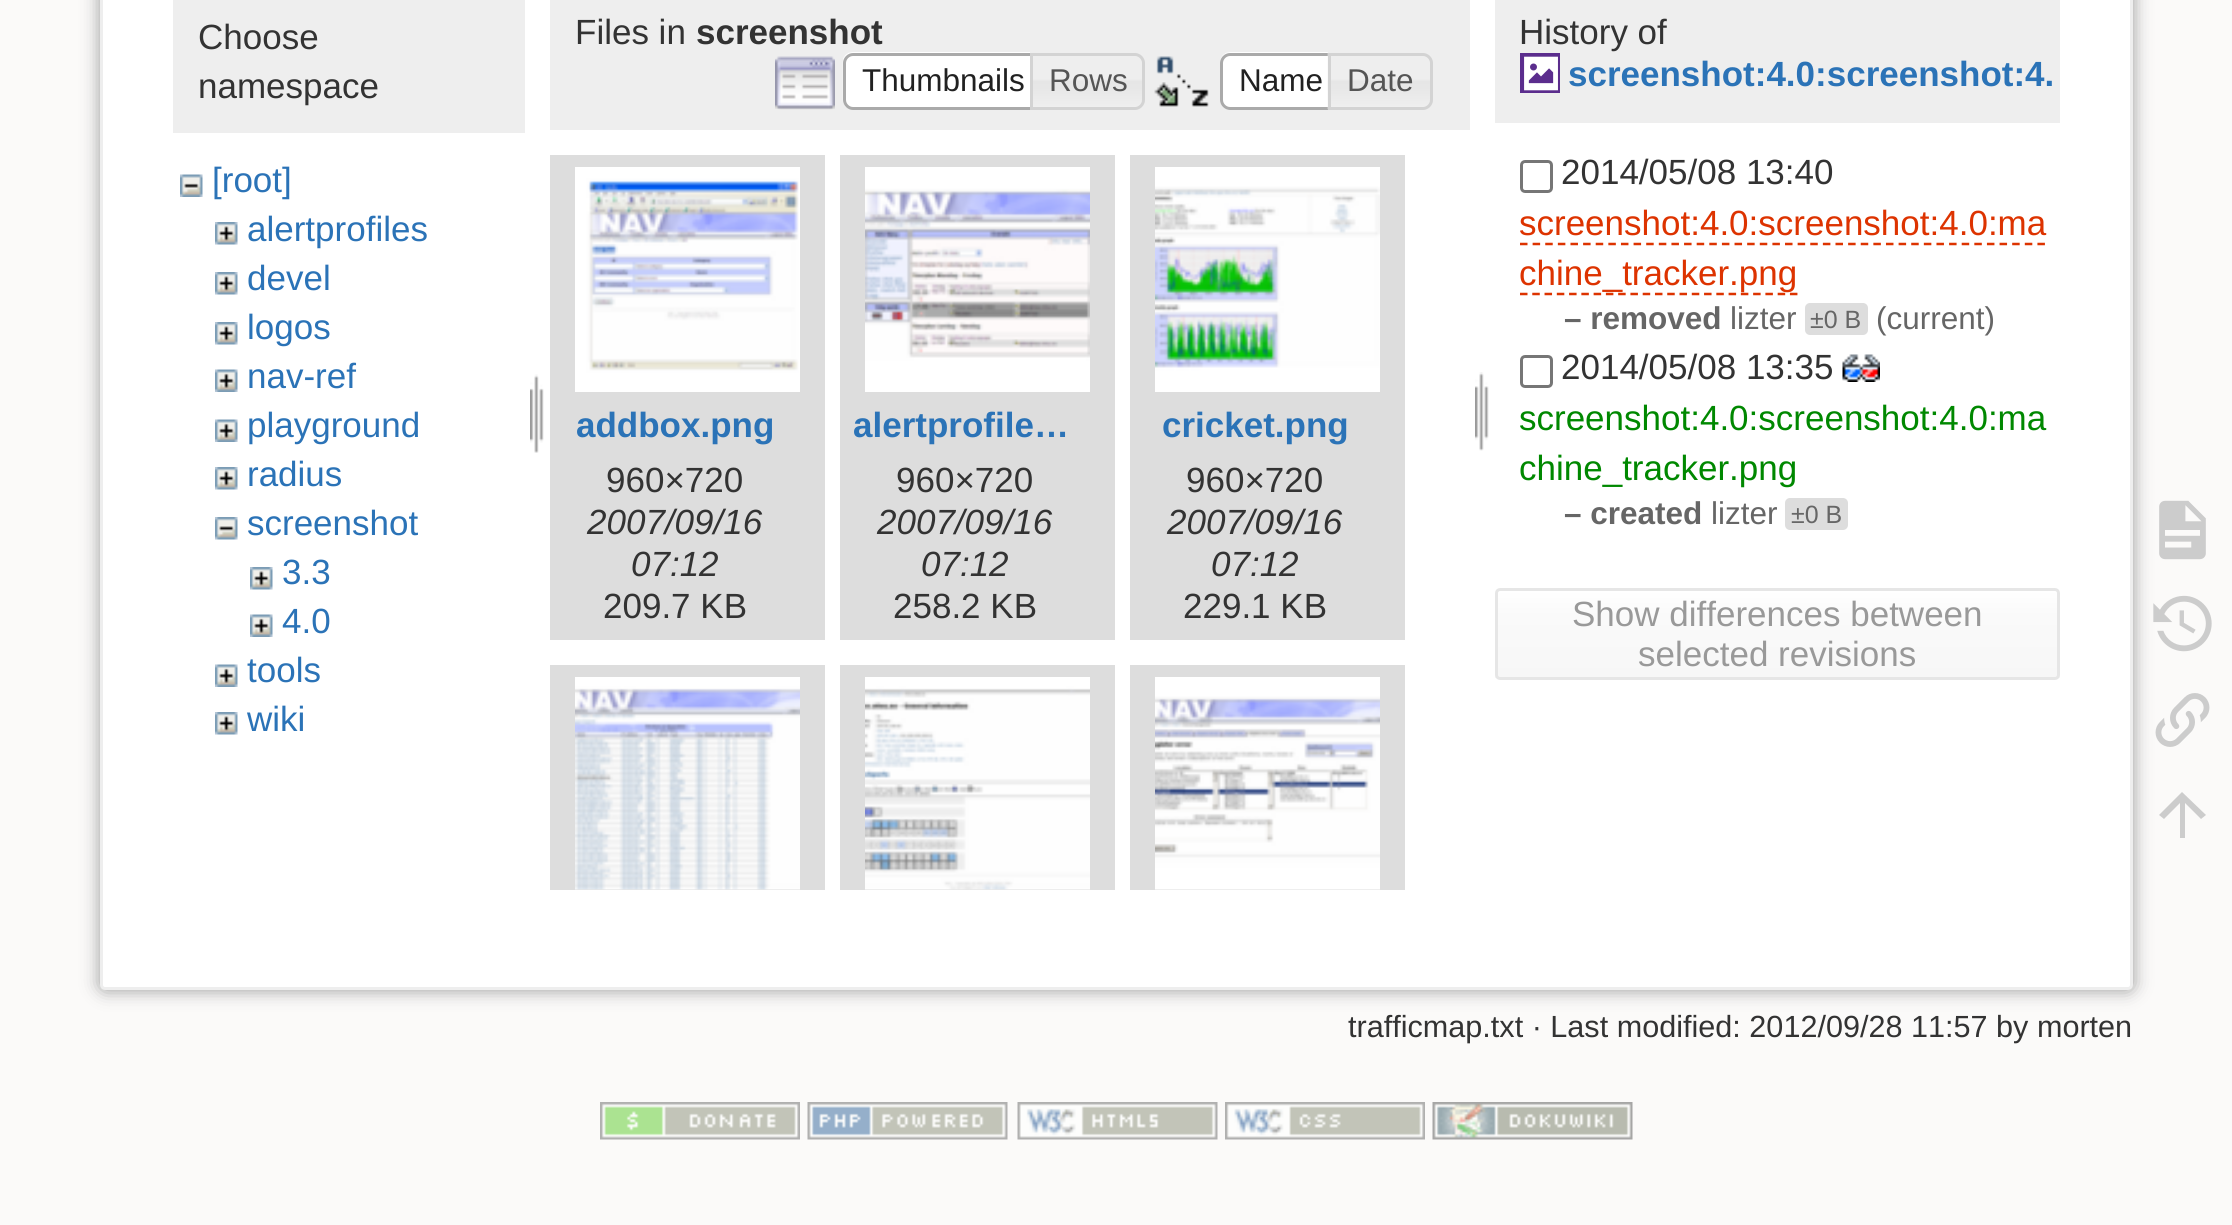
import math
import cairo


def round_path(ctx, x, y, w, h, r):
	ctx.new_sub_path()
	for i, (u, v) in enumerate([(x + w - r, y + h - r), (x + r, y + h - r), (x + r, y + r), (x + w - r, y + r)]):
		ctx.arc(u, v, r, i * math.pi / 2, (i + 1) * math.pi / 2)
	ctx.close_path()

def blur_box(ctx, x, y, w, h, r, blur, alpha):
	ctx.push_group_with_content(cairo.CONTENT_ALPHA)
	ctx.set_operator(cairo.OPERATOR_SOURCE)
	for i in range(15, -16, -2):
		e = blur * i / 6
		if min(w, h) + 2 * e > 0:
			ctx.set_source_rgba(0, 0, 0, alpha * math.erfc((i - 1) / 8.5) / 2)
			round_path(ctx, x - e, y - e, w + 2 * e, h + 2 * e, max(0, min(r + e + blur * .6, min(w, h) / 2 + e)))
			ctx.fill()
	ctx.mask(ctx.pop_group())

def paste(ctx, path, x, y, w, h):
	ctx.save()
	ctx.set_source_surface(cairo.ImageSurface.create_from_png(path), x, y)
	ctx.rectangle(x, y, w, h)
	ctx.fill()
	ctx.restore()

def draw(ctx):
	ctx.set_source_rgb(0.984, 0.98, 0.976)
	ctx.paint()
	ctx.set_source_rgb(0.6, 0.6, 0.6)
	blur_box(ctx, 100, -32, 2033, 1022, 5, 9, 1)
	ctx.set_source_rgb(1, 1, 1)
	round_path(ctx, 101.5, -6.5, 2030, 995, 3.5)
	ctx.fill_preserve()
	ctx.set_source_rgb(0.933, 0.933, 0.933)
	ctx.set_line_width(3)
	ctx.stroke()
	ctx.rectangle(173, 0, 352, 133)
	ctx.fill()
	ctx.select_font_face('Liberation Sans')
	ctx.set_font_size(35)
	ctx.set_source_rgb(0.2, 0.2, 0.2)
	ctx.move_to(198, 49)
	ctx.show_text('Choose')
	ctx.move_to(198, 98)
	ctx.show_text('namespace')
	paste(ctx, 'media/1.png', 180, 174, 23, 23)
	ctx.set_source_rgb(0.169, 0.451, 0.718)
	ctx.move_to(212, 192)
	ctx.show_text('[root]')
	paste(ctx, 'media/2.png', 215, 222, 23, 23)
	ctx.move_to(247, 241)
	ctx.show_text('alertprofiles')
	paste(ctx, 'media/2.png', 215, 272, 23, 23)
	ctx.move_to(247, 290)
	ctx.show_text('devel')
	paste(ctx, 'media/2.png', 215, 322, 23, 23)
	ctx.move_to(247, 339)
	ctx.show_text('logos')
	paste(ctx, 'media/3.png', 215, 369, 23, 23)
	ctx.move_to(247, 388)
	ctx.show_text('nav-ref')
	paste(ctx, 'media/3.png', 215, 419, 23, 23)
	ctx.move_to(247, 437)
	ctx.show_text('playground')
	paste(ctx, 'media/2.png', 215, 467, 23, 23)
	ctx.move_to(247, 486)
	ctx.show_text('radius')
	paste(ctx, 'media/4.png', 215, 517, 23, 23)
	ctx.move_to(247, 535)
	ctx.show_text('screenshot')
	paste(ctx, 'media/2.png', 250, 567, 23, 23)
	ctx.move_to(282, 584)
	ctx.show_text('3.3')
	paste(ctx, 'media/3.png', 250, 614, 23, 23)
	ctx.move_to(282, 633)
	ctx.show_text('4.0')
	paste(ctx, 'media/3.png', 215, 664, 23, 23)
	ctx.move_to(247, 682)
	ctx.show_text('tools')
	paste(ctx, 'media/2.png', 215, 712, 23, 23)
	ctx.move_to(247, 731)
	ctx.show_text('wiki')
	paste(ctx, 'media/5.png', 530, 374, 14, 79)
	ctx.set_source_rgb(0.933, 0.933, 0.933)
	ctx.rectangle(550, 0, 920, 130)
	ctx.fill()
	ctx.set_source_rgb(0.2, 0.2, 0.2)
	ctx.move_to(575, 44)
	ctx.show_text('Files in')
	ctx.select_font_face('Liberation Sans', cairo.FONT_SLANT_NORMAL, cairo.FONT_WEIGHT_BOLD)
	ctx.move_to(696, 44)
	ctx.show_text('screenshot')
	paste(ctx, 'media/6.png', 775, 56, 60, 54)
	paste(ctx, 'media/7.png', 842, 52, 188, 55)
	ctx.new_path()
	ctx.move_to(853, 54.5)
	ctx.line_to(1041.5, 54.5)
	ctx.line_to(1041.5, 108.5)
	ctx.line_to(853, 108.5)
	ctx.curve_to(848.5, 108.5, 844.5, 104.5, 844.5, 100)
	ctx.line_to(844.5, 63)
	ctx.curve_to(844.5, 58.5, 848.5, 54.5, 853, 54.5)
	ctx.close_path()
	ctx.set_source_rgb(0.667, 0.667, 0.667)
	ctx.stroke()
	ctx.select_font_face('Liberation Sans')
	ctx.set_font_size(31.5)
	ctx.set_source_rgb(0.129, 0.129, 0.129)
	ctx.move_to(862, 91)
	ctx.show_text('Thumbnails')
	paste(ctx, 'media/8.png', 1030, 52, 115, 57)
	ctx.new_path()
	ctx.move_to(1031.5, 54.5)
	ctx.line_to(1135, 54.5)
	ctx.curve_to(1139.5, 54.5, 1143.5, 58.5, 1143.5, 63)
	ctx.line_to(1143.5, 100)
	ctx.curve_to(1143.5, 104.5, 1139.5, 108.5, 1135, 108.5)
	ctx.line_to(1031.5, 108.5)
	ctx.close_path()
	ctx.set_source_rgb(0.827, 0.827, 0.827)
	ctx.stroke()
	ctx.set_source_rgb(0.333, 0.333, 0.333)
	ctx.move_to(1049, 91)
	ctx.show_text('Rows')
	paste(ctx, 'media/9.png', 1154, 56, 55, 51)
	ctx.set_source_rgb(1, 1, 1)
	ctx.new_path()
	ctx.move_to(1230, 53)
	ctx.line_to(1340, 53)
	ctx.line_to(1340, 110)
	ctx.line_to(1230, 110)
	ctx.curve_to(1224.5, 110, 1220, 105.5, 1220, 100)
	ctx.line_to(1220, 63)
	ctx.curve_to(1220, 57.5, 1224.5, 53, 1230, 53)
	ctx.close_path()
	ctx.fill()
	paste(ctx, 'media/10.png', 1220, 52, 108, 8)
	ctx.new_path()
	ctx.move_to(1230, 54.5)
	ctx.line_to(1338.5, 54.5)
	ctx.line_to(1338.5, 108.5)
	ctx.line_to(1230, 108.5)
	ctx.curve_to(1225.5, 108.5, 1221.5, 104.5, 1221.5, 100)
	ctx.line_to(1221.5, 63)
	ctx.curve_to(1221.5, 58.5, 1225.5, 54.5, 1230, 54.5)
	ctx.close_path()
	ctx.set_source_rgb(0.667, 0.667, 0.667)
	ctx.stroke()
	ctx.set_source_rgb(0.129, 0.129, 0.129)
	ctx.move_to(1239, 91)
	ctx.show_text('Name')
	paste(ctx, 'media/11.png', 1327, 52, 105, 58)
	ctx.new_path()
	ctx.move_to(1329.5, 54.5)
	ctx.line_to(1423, 54.5)
	ctx.curve_to(1427.5, 54.5, 1431.5, 58.5, 1431.5, 63)
	ctx.line_to(1431.5, 100)
	ctx.curve_to(1431.5, 104.5, 1427.5, 108.5, 1423, 108.5)
	ctx.line_to(1329.5, 108.5)
	ctx.close_path()
	ctx.set_source_rgb(0.827, 0.827, 0.827)
	ctx.stroke()
	ctx.set_source_rgb(0.333, 0.333, 0.333)
	ctx.move_to(1347, 91)
	ctx.show_text('Date')
	ctx.set_source_rgb(0.867, 0.867, 0.867)
	ctx.rectangle(550, 155, 275, 485)
	ctx.fill()
	paste(ctx, 'media/12.png', 575, 167, 225, 225)
	ctx.select_font_face('Liberation Sans', cairo.FONT_SLANT_NORMAL, cairo.FONT_WEIGHT_BOLD)
	ctx.set_font_size(35)
	ctx.set_source_rgb(0.169, 0.451, 0.718)
	ctx.move_to(576, 437)
	ctx.show_text('addbox.png')
	ctx.select_font_face('Liberation Sans')
	ctx.set_source_rgb(0.2, 0.2, 0.2)
	ctx.move_to(606, 492)
	ctx.show_text('960×720')
	ctx.select_font_face('Liberation Sans', cairo.FONT_SLANT_ITALIC)
	ctx.move_to(587, 534)
	ctx.show_text('2007/09/16')
	ctx.move_to(631, 576)
	ctx.show_text('07:12')
	ctx.select_font_face('Liberation Sans')
	ctx.move_to(603, 618)
	ctx.show_text('209.7 KB')
	ctx.set_source_rgb(0.867, 0.867, 0.867)
	ctx.rectangle(840, 155, 275, 485)
	ctx.fill()
	paste(ctx, 'media/13.png', 865, 167, 225, 225)
	ctx.select_font_face('Liberation Sans', cairo.FONT_SLANT_NORMAL, cairo.FONT_WEIGHT_BOLD)
	ctx.set_source_rgb(0.169, 0.451, 0.718)
	ctx.move_to(853, 437)
	ctx.show_text('alertprofile…')
	ctx.select_font_face('Liberation Sans')
	ctx.set_source_rgb(0.2, 0.2, 0.2)
	ctx.move_to(896, 492)
	ctx.show_text('960×720')
	ctx.select_font_face('Liberation Sans', cairo.FONT_SLANT_ITALIC)
	ctx.move_to(877, 534)
	ctx.show_text('2007/09/16')
	ctx.move_to(921, 576)
	ctx.show_text('07:12')
	ctx.select_font_face('Liberation Sans')
	ctx.move_to(893, 618)
	ctx.show_text('258.2 KB')
	ctx.set_source_rgb(0.867, 0.867, 0.867)
	ctx.rectangle(1130, 155, 275, 485)
	ctx.fill()
	paste(ctx, 'media/14.png', 1155, 167, 225, 225)
	ctx.select_font_face('Liberation Sans', cairo.FONT_SLANT_NORMAL, cairo.FONT_WEIGHT_BOLD)
	ctx.set_source_rgb(0.169, 0.451, 0.718)
	ctx.move_to(1162, 437)
	ctx.show_text('cricket.png')
	ctx.select_font_face('Liberation Sans')
	ctx.set_source_rgb(0.2, 0.2, 0.2)
	ctx.move_to(1186, 492)
	ctx.show_text('960×720')
	ctx.select_font_face('Liberation Sans', cairo.FONT_SLANT_ITALIC)
	ctx.move_to(1167, 534)
	ctx.show_text('2007/09/16')
	ctx.move_to(1211, 576)
	ctx.show_text('07:12')
	ctx.select_font_face('Liberation Sans')
	ctx.move_to(1183, 618)
	ctx.show_text('229.1 KB')
	ctx.set_source_rgb(0.867, 0.867, 0.867)
	ctx.rectangle(550, 665, 275, 225)
	ctx.fill()
	paste(ctx, 'media/15.png', 575, 677, 225, 213)
	ctx.rectangle(840, 665, 275, 225)
	ctx.fill()
	paste(ctx, 'media/16.png', 865, 677, 225, 213)
	ctx.rectangle(1130, 665, 275, 225)
	ctx.fill()
	paste(ctx, 'media/17.png', 1155, 677, 225, 213)
	paste(ctx, 'media/18.png', 1475, 372, 14, 79)
	ctx.set_source_rgb(0.933, 0.933, 0.933)
	ctx.rectangle(1495, 0, 565, 123)
	ctx.fill()
	ctx.set_source_rgb(0.2, 0.2, 0.2)
	ctx.move_to(1519, 44)
	ctx.show_text('History of')
	paste(ctx, 'media/19.png', 1520, 53, 40, 40)
	ctx.select_font_face('Liberation Sans', cairo.FONT_SLANT_NORMAL, cairo.FONT_WEIGHT_BOLD)
	ctx.set_source_rgb(0.169, 0.451, 0.718)
	ctx.move_to(1568, 86)
	ctx.show_text('screenshot:4.0:screenshot:4.')
	round_path(ctx, 1521.5, 161.5, 30, 30, 3.5)
	ctx.set_source_rgb(0.463, 0.463, 0.463)
	ctx.stroke()
	ctx.select_font_face('Liberation Sans')
	ctx.set_source_rgb(0.2, 0.2, 0.2)
	ctx.move_to(1561, 184)
	ctx.show_text('2014/05/08 13:40')
	ctx.set_source_rgb(0.867, 0.2, 0)
	ctx.move_to(1519, 235)
	ctx.show_text('screenshot:4.0:screenshot:4.0:ma')
	ctx.new_path()
	ctx.move_to(1520, 244)
	ctx.line_to(2045, 244)
	ctx.set_line_width(2.5)
	ctx.set_dash([7.5, 5.12])
	ctx.stroke()
	ctx.new_path()
	ctx.move_to(1520, 294)
	ctx.line_to(1797.5, 294)
	ctx.set_dash([7.5, 4.77])
	ctx.stroke()
	ctx.move_to(1519, 285)
	ctx.show_text('chine_tracker.png')
	ctx.select_font_face('Liberation Sans', cairo.FONT_SLANT_NORMAL, cairo.FONT_WEIGHT_BOLD)
	ctx.set_font_size(31.5)
	ctx.set_source_rgb(0.4, 0.4, 0.4)
	ctx.move_to(1564, 329)
	ctx.show_text('– removed')
	ctx.select_font_face('Liberation Sans')
	ctx.move_to(1730, 329)
	ctx.show_text('lizter')
	ctx.set_source_rgb(0.867, 0.867, 0.867)
	round_path(ctx, 1805, 303, 63, 32, 5)
	ctx.fill()
	ctx.set_font_size(25)
	ctx.set_source_rgb(0.4, 0.4, 0.4)
	ctx.move_to(1810, 328)
	ctx.show_text('±0 B')
	ctx.set_font_size(31.5)
	ctx.move_to(1876, 329)
	ctx.show_text('(current)')
	round_path(ctx, 1521.5, 356.5, 30, 30, 3.5)
	ctx.set_source_rgb(0.463, 0.463, 0.463)
	ctx.set_line_width(3)
	ctx.set_dash([])
	ctx.stroke()
	ctx.set_font_size(35)
	ctx.set_source_rgb(0.2, 0.2, 0.2)
	ctx.move_to(1561, 379)
	ctx.show_text('2014/05/08 13:35')
	paste(ctx, 'media/20.png', 1842, 354, 38, 28)
	ctx.set_source_rgb(0, 0.533, 0)
	ctx.move_to(1519, 430)
	ctx.show_text('screenshot:4.0:screenshot:4.0:ma')
	ctx.move_to(1519, 480)
	ctx.show_text('chine_tracker.png')
	ctx.select_font_face('Liberation Sans', cairo.FONT_SLANT_NORMAL, cairo.FONT_WEIGHT_BOLD)
	ctx.set_font_size(31.5)
	ctx.set_source_rgb(0.4, 0.4, 0.4)
	ctx.move_to(1564, 524)
	ctx.show_text('– created')
	ctx.select_font_face('Liberation Sans')
	ctx.move_to(1711, 524)
	ctx.show_text('lizter')
	ctx.set_source_rgb(0.867, 0.867, 0.867)
	round_path(ctx, 1785, 498, 63, 32, 5)
	ctx.fill()
	ctx.set_font_size(25)
	ctx.set_source_rgb(0.4, 0.4, 0.4)
	ctx.move_to(1791, 523)
	ctx.show_text('±0 B')
	ctx.save()
	round_path(ctx, 1495, 588, 565, 92, 5)
	ctx.clip()
	gradient = cairo.LinearGradient(1778, 590, 1778, 678)
	gradient.add_color_stop_rgba(0, 1, 1, 1, 1)
	gradient.add_color_stop_rgba(0.3, 0.98, 0.98, 0.98, 1)
	gradient.add_color_stop_rgba(0.99, 0.969, 0.969, 0.969, 1)
	gradient.add_color_stop_rgba(0.99, 0.902, 0.902, 0.902, 1)
	ctx.set_source(gradient)
	ctx.rectangle(1495, 590, 565, 88)
	ctx.fill()
	ctx.restore()
	round_path(ctx, 1496.5, 589.5, 562, 89, 3.5)
	ctx.set_source_rgb(0.902, 0.902, 0.902)
	ctx.stroke()
	ctx.set_font_size(35)
	ctx.set_source_rgb(0.6, 0.6, 0.6)
	ctx.move_to(1572, 626)
	ctx.show_text('Show differences between')
	ctx.move_to(1638, 666)
	ctx.show_text('selected revisions')
	ctx.set_font_size(30.6)
	ctx.set_source_rgb(0.2, 0.2, 0.2)
	ctx.move_to(1348, 1037)
	ctx.show_text('trafficmap.txt · Last modified: 2012/09/28 11:57 by morten')
	paste(ctx, 'media/21.png', 2159, 500, 47, 60)
	paste(ctx, 'media/22.png', 2153, 595, 59, 57)
	paste(ctx, 'media/23.png', 2155, 693, 55, 54)
	ctx.set_source_rgb(0.8, 0.8, 0.8)
	ctx.new_path()
	ctx.move_to(2185, 838)
	ctx.line_to(2180, 838)
	ctx.line_to(2180, 803)
	ctx.line_to(2164, 819)
	ctx.line_to(2159, 815)
	ctx.line_to(2182, 792)
	ctx.line_to(2206, 815)
	ctx.line_to(2201, 819)
	ctx.line_to(2185, 803)
	ctx.close_path()
	ctx.fill()
	paste(ctx, 'media/24.png', 600, 1102, 200, 38)
	paste(ctx, 'media/25.png', 807, 1102, 201, 38)
	paste(ctx, 'media/26.png', 1017, 1102, 201, 38)
	paste(ctx, 'media/27.png', 1225, 1102, 200, 38)
	paste(ctx, 'media/28.png', 1432, 1102, 201, 38)


surface = cairo.ImageSurface(cairo.FORMAT_RGB24, 2232, 1225)
ctx = cairo.Context(surface)
options = cairo.FontOptions()
options.set_hint_metrics(cairo.HINT_METRICS_OFF)
options.set_hint_style(cairo.HINT_STYLE_NONE)
ctx.set_font_options(options)
ctx.set_miter_limit(4)
draw(ctx)
surface.write_to_png('image.png')
